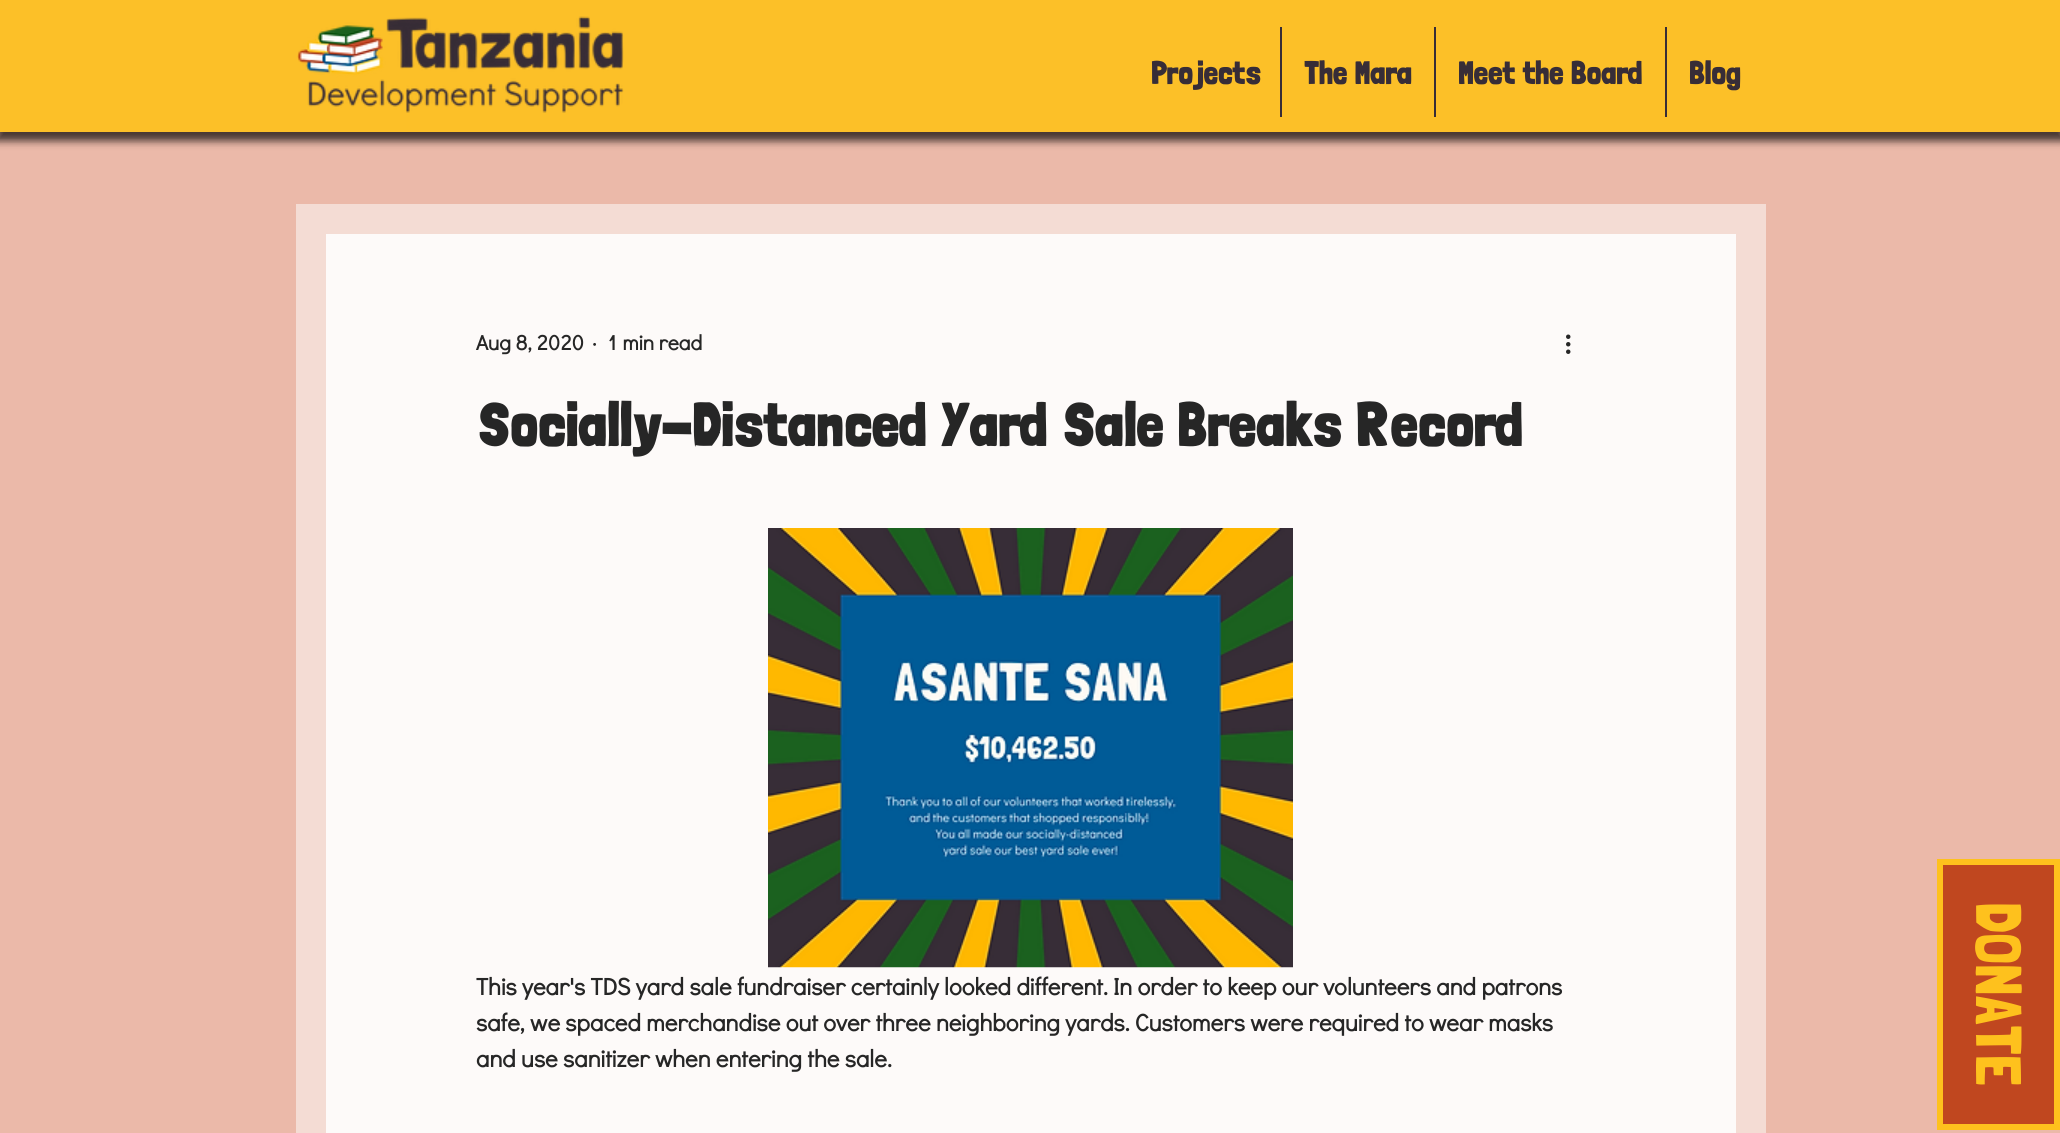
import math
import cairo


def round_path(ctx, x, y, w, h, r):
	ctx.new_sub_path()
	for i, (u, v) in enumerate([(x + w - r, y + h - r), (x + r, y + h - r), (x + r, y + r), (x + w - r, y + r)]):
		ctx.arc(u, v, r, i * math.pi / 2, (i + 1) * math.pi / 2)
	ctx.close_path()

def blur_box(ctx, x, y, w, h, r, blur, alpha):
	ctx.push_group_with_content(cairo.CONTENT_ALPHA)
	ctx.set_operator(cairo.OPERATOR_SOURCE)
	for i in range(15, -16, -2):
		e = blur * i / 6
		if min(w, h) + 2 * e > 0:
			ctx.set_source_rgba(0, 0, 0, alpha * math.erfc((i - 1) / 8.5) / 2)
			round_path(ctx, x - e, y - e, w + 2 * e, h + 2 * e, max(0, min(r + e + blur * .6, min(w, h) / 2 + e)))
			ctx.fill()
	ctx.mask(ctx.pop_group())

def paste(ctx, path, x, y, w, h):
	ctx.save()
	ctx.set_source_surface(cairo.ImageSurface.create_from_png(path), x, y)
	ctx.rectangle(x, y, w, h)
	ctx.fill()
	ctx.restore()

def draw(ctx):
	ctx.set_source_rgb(0.918, 0.725, 0.663)
	ctx.paint()
	ctx.set_source_rgb(0, 0, 0)
	blur_box(ctx, -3, 3, 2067, 138, 0, 4, 0.7)
	ctx.set_source_rgb(0.988, 0.753, 0.157)
	ctx.rectangle(0, 0, 2060, 132)
	ctx.fill()
	paste(ctx, 'media/1.png', 297, 16, 327, 97)
	ctx.select_font_face('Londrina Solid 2', cairo.FONT_SLANT_NORMAL, cairo.FONT_WEIGHT_BOLD)
	ctx.set_font_size(31.5)
	ctx.set_source_rgb(0.216, 0.176, 0.216)
	ctx.move_to(1151, 84)
	ctx.show_text('Projects')
	ctx.rectangle(1280, 27, 2, 90)
	ctx.fill()
	ctx.move_to(1304, 84)
	ctx.show_text('The Mara')
	ctx.rectangle(1434, 27, 2, 90)
	ctx.fill()
	ctx.move_to(1458, 84)
	ctx.show_text('Meet the Board')
	ctx.rectangle(1665, 27, 2, 90)
	ctx.fill()
	ctx.move_to(1689, 84)
	ctx.show_text('Blog')
	ctx.set_source_rgb(0.957, 0.863, 0.831)
	ctx.rectangle(296, 204, 1470, 929)
	ctx.fill()
	ctx.set_source_rgb(0.992, 0.98, 0.973)
	ctx.rectangle(326, 234, 1410, 899)
	ctx.fill()
	ctx.select_font_face('Didact Gothic', cairo.FONT_SLANT_NORMAL, cairo.FONT_WEIGHT_BOLD)
	ctx.set_font_size(21)
	ctx.set_source_rgb(0.149, 0.149, 0.149)
	for x, y, s in [
		(476, 350, 'Aug 8, 2020'),
		(592, 350, '·'),
		(606, 350, '1 min read'),
	]:
		ctx.move_to(x, y)
		ctx.show_text(s)
	paste(ctx, 'media/2.png', 1566, 334, 5, 20)
	ctx.select_font_face('Londrina Solid', cairo.FONT_SLANT_NORMAL, cairo.FONT_WEIGHT_BOLD)
	ctx.set_font_size(60)
	ctx.move_to(476, 446)
	ctx.show_text('Socially-Distanced Yard Sale Breaks Record')
	paste(ctx, 'media/3.png', 768, 528, 525, 440)
	ctx.select_font_face('Didact Gothic', cairo.FONT_SLANT_NORMAL, cairo.FONT_WEIGHT_BOLD)
	ctx.set_font_size(24)
	for x, y, s in [
		(476, 995, 'This year\'s TDS yard sale fundraiser certainly looked different. In order to keep our volunteers and patrons'),
		(476, 1031, 'safe, we spaced merchandise out over three neighboring yards. Customers were required to wear masks'),
		(476, 1067, 'and use sanitizer when entering the sale.'),
	]:
		ctx.move_to(x, y)
		ctx.show_text(s)
	ctx.set_source_rgb(0.753, 0.278, 0.122)
	ctx.rectangle(1943, 865, 111, 259)
	ctx.fill()
	ctx.new_path()
	ctx.move_to(2057, 862)
	ctx.line_to(2057, 1127)
	ctx.line_to(1940, 1127)
	ctx.line_to(1940, 862)
	ctx.close_path()
	ctx.set_source_rgb(0.996, 0.757, 0.114)
	ctx.set_line_width(6)
	ctx.stroke()
	ctx.select_font_face('Londrina Solid')
	ctx.set_font_size(64.5)
	ctx.save()
	ctx.translate(1976, 902)
	ctx.rotate(90 * math.pi / 180)
	ctx.move_to(0, 0)
	ctx.show_text('DONATE')
	ctx.restore()


surface = cairo.ImageSurface(cairo.FORMAT_RGB24, 2060, 1133)
ctx = cairo.Context(surface)
options = cairo.FontOptions()
options.set_hint_metrics(cairo.HINT_METRICS_OFF)
options.set_hint_style(cairo.HINT_STYLE_NONE)
ctx.set_font_options(options)
ctx.set_miter_limit(4)
draw(ctx)
surface.write_to_png('image.png')
